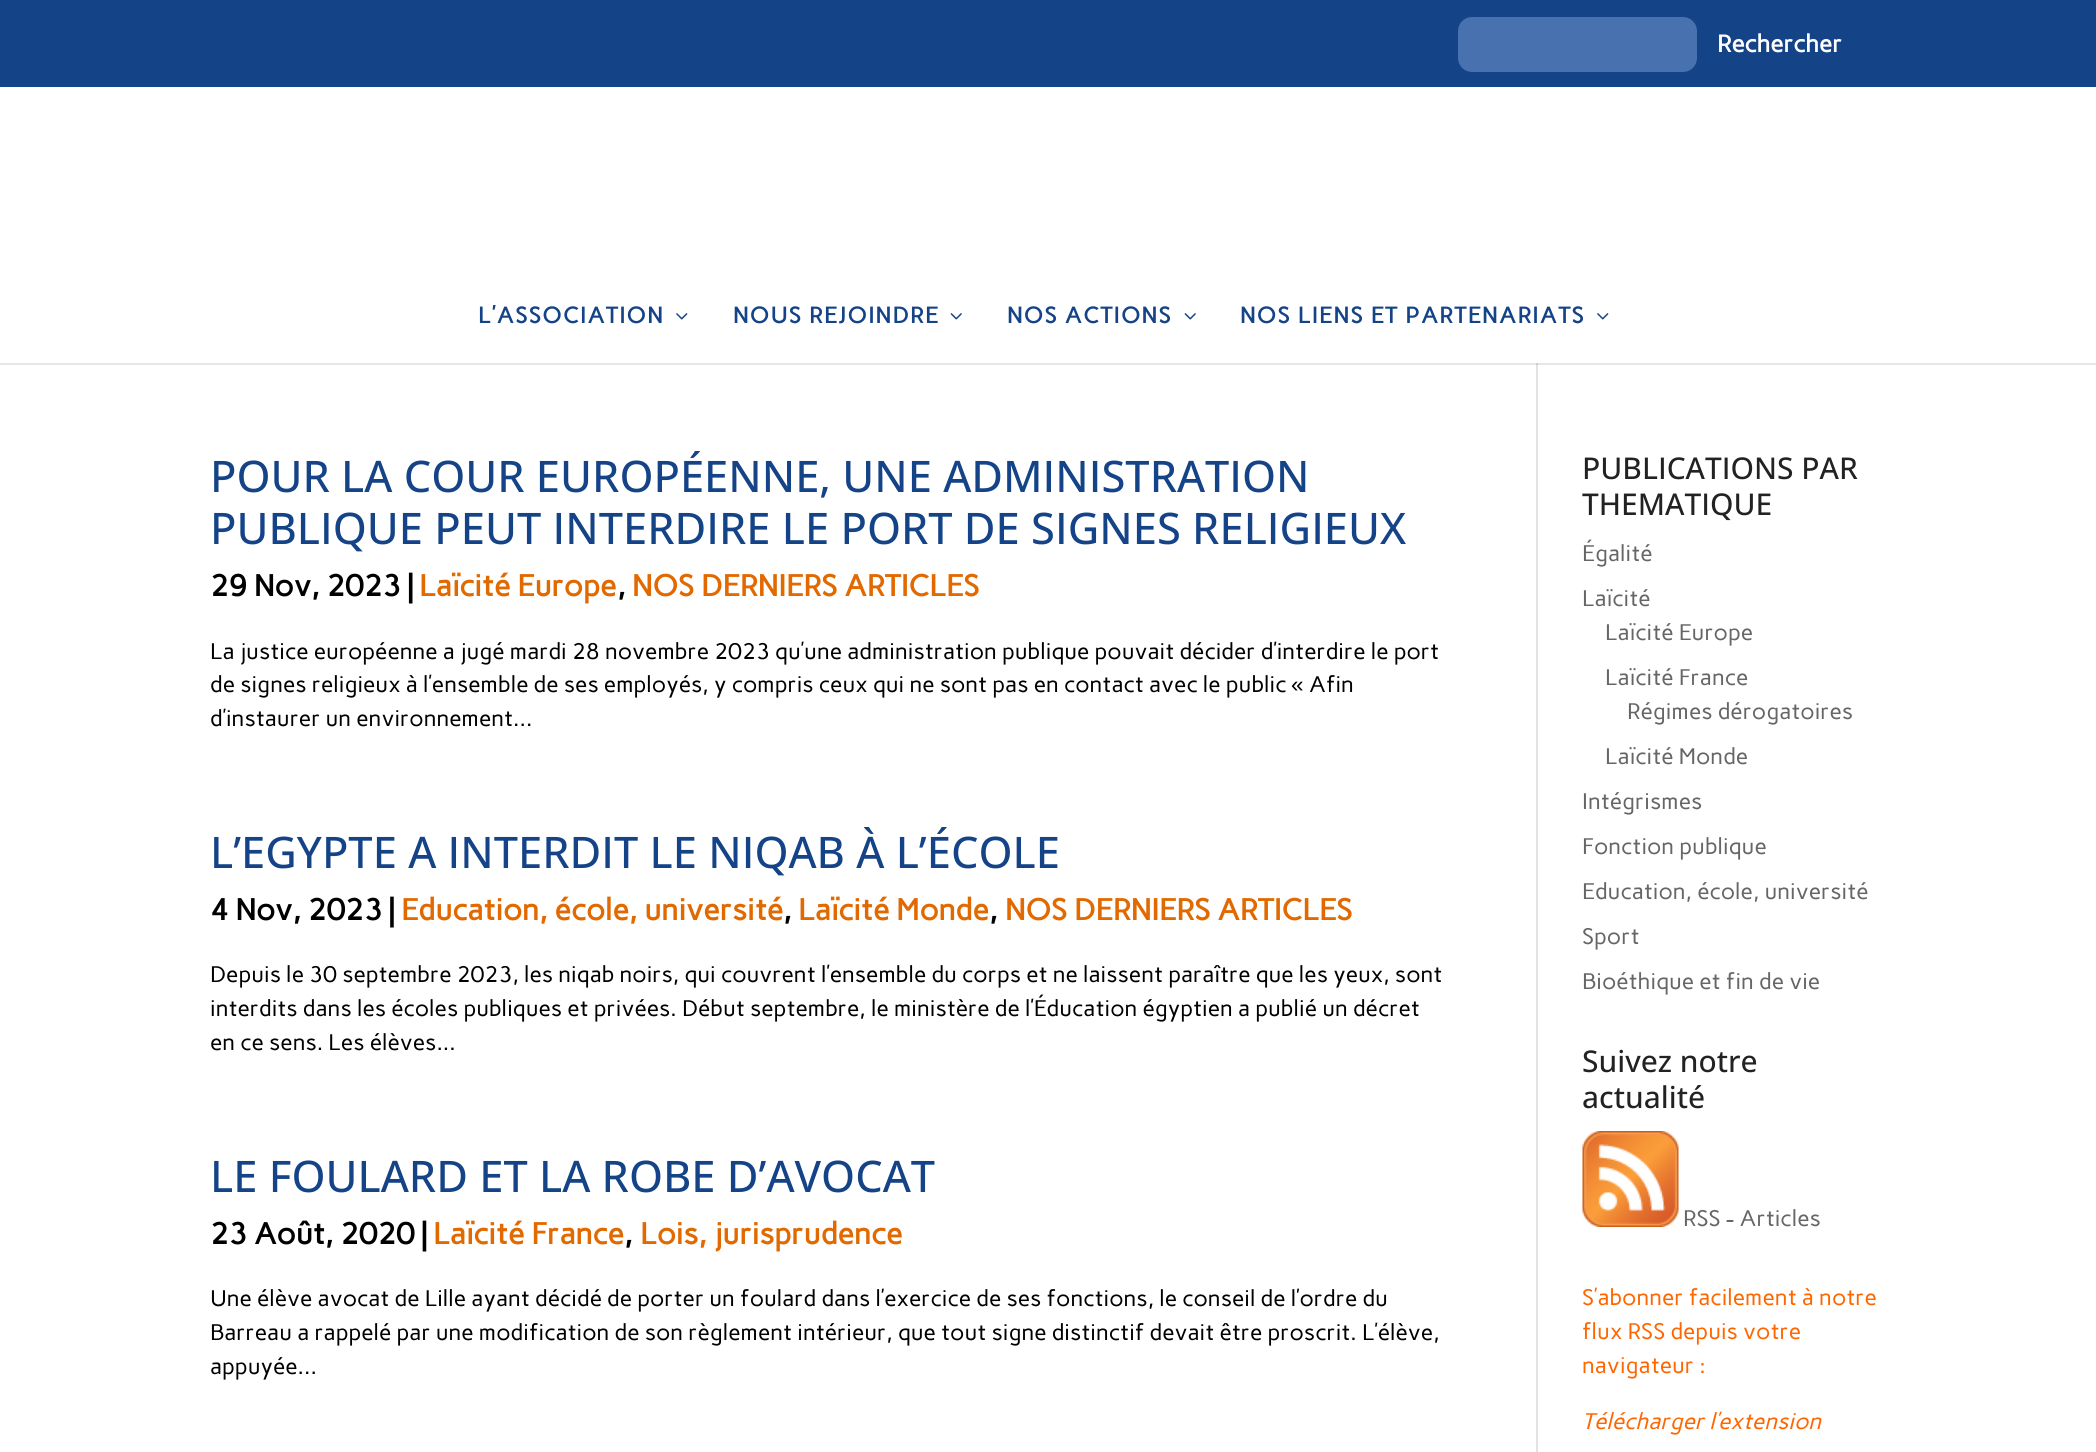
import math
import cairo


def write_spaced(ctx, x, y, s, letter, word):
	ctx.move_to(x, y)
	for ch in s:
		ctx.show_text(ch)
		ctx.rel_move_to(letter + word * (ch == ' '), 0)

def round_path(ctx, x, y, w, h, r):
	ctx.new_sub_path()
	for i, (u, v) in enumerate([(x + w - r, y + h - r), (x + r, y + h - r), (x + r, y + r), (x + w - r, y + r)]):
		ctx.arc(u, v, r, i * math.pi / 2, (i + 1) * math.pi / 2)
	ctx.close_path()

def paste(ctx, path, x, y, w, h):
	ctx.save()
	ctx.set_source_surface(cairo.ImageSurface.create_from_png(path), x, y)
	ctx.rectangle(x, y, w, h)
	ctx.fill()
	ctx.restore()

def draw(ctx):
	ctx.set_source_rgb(1, 1, 1)
	ctx.paint()
	ctx.set_source_rgb(0.902, 0.902, 0.902)
	ctx.rectangle(0, 363, 2096, 2)
	ctx.fill()
	ctx.set_source_rgb(0.082, 0.263, 0.529)
	ctx.rectangle(0, 0, 2096, 87)
	ctx.fill()
	ctx.set_source_rgb(0.282, 0.447, 0.686)
	round_path(ctx, 1459, 18, 237, 53, 13)
	ctx.fill_preserve()
	ctx.stroke()
	ctx.select_font_face('Carme', cairo.FONT_SLANT_NORMAL, cairo.FONT_WEIGHT_BOLD)
	ctx.set_font_size(24)
	ctx.set_source_rgb(1, 1, 1)
	ctx.move_to(1717, 52)
	ctx.show_text('Rechercher')
	ctx.set_font_size(22.5)
	ctx.set_source_rgb(0.082, 0.263, 0.529)
	write_spaced(ctx, 478, 323, 'L’ASSOCIATION', 1.5, 0)
	paste(ctx, 'media/1.png', 676, 313, 12, 7)
	write_spaced(ctx, 733, 323, 'NOUS REJOINDRE', 1.5, 0)
	paste(ctx, 'media/2.png', 950, 313, 12, 7)
	write_spaced(ctx, 1007, 323, 'NOS ACTIONS', 1.5, 0)
	paste(ctx, 'media/2.png', 1184, 313, 12, 7)
	write_spaced(ctx, 1240, 323, 'NOS LIENS ET PARTENARIATS', 1.5, 0)
	paste(ctx, 'media/1.png', 1597, 313, 12, 7)
	ctx.set_source_rgb(0.886, 0.886, 0.886)
	ctx.rectangle(1536, 363, 2, 1089)
	ctx.fill()
	ctx.set_source_rgb(0.796, 0.796, 0.796)
	ctx.rectangle(1536, 363, 2, 2)
	ctx.fill()
	ctx.select_font_face('Open Sans Medium')
	ctx.set_font_size(43.5)
	ctx.set_source_rgb(0.082, 0.263, 0.529)
	ctx.move_to(210, 492)
	ctx.show_text('POUR LA COUR EUROPÉENNE, UNE ADMINISTRATION')
	ctx.move_to(210, 544)
	ctx.show_text('PUBLIQUE PEUT INTERDIRE LE PORT DE SIGNES RELIGIEUX')
	ctx.select_font_face('Carme', cairo.FONT_SLANT_NORMAL, cairo.FONT_WEIGHT_BOLD)
	ctx.set_font_size(30)
	ctx.set_source_rgb(0, 0, 0)
	ctx.move_to(210, 596)
	ctx.show_text('29 Nov, 2023 |')
	ctx.set_source_rgb(0.886, 0.412, 0)
	ctx.move_to(419, 596)
	ctx.show_text('Laïcité Europe')
	ctx.set_source_rgb(0, 0, 0)
	ctx.move_to(617, 596)
	ctx.show_text(',')
	ctx.set_source_rgb(0.886, 0.412, 0)
	ctx.move_to(632, 596)
	ctx.show_text('NOS DERNIERS ARTICLES')
	ctx.select_font_face('Carme')
	ctx.set_font_size(22.5)
	ctx.set_source_rgb(0, 0, 0)
	ctx.move_to(210, 659)
	ctx.show_text('La justice européenne a jugé mardi 28 novembre 2023 qu’une administration publique pouvait décider d’interdire le port')
	ctx.move_to(210, 692)
	ctx.show_text('de signes religieux à l’ensemble de ses employés, y compris ceux qui ne sont pas en contact avec le public')
	ctx.select_font_face('Liberation Sans')
	ctx.move_to(1291, 692)
	ctx.show_text('«')
	ctx.select_font_face('Carme')
	ctx.move_to(1309, 692)
	ctx.show_text('Afin')
	ctx.move_to(210, 726)
	ctx.show_text('d’instaurer un environnement...')
	ctx.select_font_face('Open Sans Medium')
	ctx.set_font_size(43.5)
	ctx.set_source_rgb(0.082, 0.263, 0.529)
	ctx.move_to(210, 868)
	ctx.show_text('L’EGYPTE A INTERDIT LE NIQAB À L’ÉCOLE')
	ctx.select_font_face('Carme', cairo.FONT_SLANT_NORMAL, cairo.FONT_WEIGHT_BOLD)
	ctx.set_font_size(30)
	ctx.set_source_rgb(0, 0, 0)
	ctx.move_to(210, 920)
	ctx.show_text('4 Nov, 2023 |')
	ctx.set_source_rgb(0.886, 0.412, 0)
	ctx.move_to(401, 920)
	ctx.show_text('Education, école, université')
	ctx.set_source_rgb(0, 0, 0)
	ctx.move_to(783, 920)
	ctx.show_text(',')
	ctx.set_source_rgb(0.886, 0.412, 0)
	ctx.move_to(798, 920)
	ctx.show_text('Laïcité Monde')
	ctx.set_source_rgb(0, 0, 0)
	ctx.move_to(989, 920)
	ctx.show_text(',')
	ctx.set_source_rgb(0.886, 0.412, 0)
	ctx.move_to(1005, 920)
	ctx.show_text('NOS DERNIERS ARTICLES')
	ctx.select_font_face('Carme')
	ctx.set_font_size(22.5)
	ctx.set_source_rgb(0, 0, 0)
	for x, y, s in [
		(210, 982, 'Depuis le 30 septembre 2023, les niqab noirs, qui couvrent l’ensemble du corps et ne laissent paraître que les yeux, sont'),
		(210, 1016, 'interdits dans les écoles publiques et privées. Début septembre, le ministère de l’Éducation égyptien a publié un décret'),
		(210, 1050, 'en ce sens. Les élèves...'),
	]:
		ctx.move_to(x, y)
		ctx.show_text(s)
	ctx.select_font_face('Open Sans Medium')
	ctx.set_font_size(43.5)
	ctx.set_source_rgb(0.082, 0.263, 0.529)
	ctx.move_to(210, 1192)
	ctx.show_text('LE FOULARD ET LA ROBE D’AVOCAT')
	ctx.select_font_face('Carme', cairo.FONT_SLANT_NORMAL, cairo.FONT_WEIGHT_BOLD)
	ctx.set_font_size(30)
	ctx.set_source_rgb(0, 0, 0)
	ctx.move_to(210, 1244)
	ctx.show_text('23 Août, 2020 |')
	ctx.set_source_rgb(0.886, 0.412, 0)
	ctx.move_to(433, 1244)
	ctx.show_text('Laïcité France')
	ctx.set_source_rgb(0, 0, 0)
	ctx.move_to(624, 1244)
	ctx.show_text(',')
	ctx.set_source_rgb(0.886, 0.412, 0)
	ctx.move_to(640, 1244)
	ctx.show_text('Lois, jurisprudence')
	ctx.select_font_face('Carme')
	ctx.set_font_size(22.5)
	ctx.set_source_rgb(0, 0, 0)
	for x, y, s in [
		(210, 1306, 'Une élève avocat de Lille ayant décidé de porter un foulard dans l’exercice de ses fonctions, le conseil de l’ordre du'),
		(210, 1340, 'Barreau a rappelé par une modification de son règlement intérieur, que tout signe distinctif devait être proscrit. L’élève,'),
		(210, 1374, 'appuyée...'),
	]:
		ctx.move_to(x, y)
		ctx.show_text(s)
	ctx.select_font_face('Open Sans Medium')
	ctx.set_font_size(30)
	ctx.set_source_rgb(0.133, 0.133, 0.133)
	ctx.move_to(1582, 479)
	ctx.show_text('PUBLICATIONS PAR')
	ctx.move_to(1582, 515)
	ctx.show_text('THEMATIQUE')
	ctx.select_font_face('Carme')
	ctx.set_font_size(22.5)
	ctx.set_source_rgb(0.4, 0.4, 0.4)
	for x, y, s in [
		(1582, 561, 'Égalité'),
		(1582, 606, 'Laïcité'),
		(1605, 640, 'Laïcité Europe'),
		(1605, 685, 'Laïcité France'),
		(1627, 719, 'Régimes dérogatoires'),
		(1605, 764, 'Laïcité Monde'),
		(1582, 809, 'Intégrismes'),
		(1582, 854, 'Fonction publique'),
		(1582, 899, 'Education, école, université'),
		(1582, 944, 'Sport'),
		(1582, 989, 'Bioéthique et fin de vie'),
	]:
		ctx.move_to(x, y)
		ctx.show_text(s)
	ctx.select_font_face('Open Sans Medium')
	ctx.set_font_size(30)
	ctx.set_source_rgb(0.133, 0.133, 0.133)
	ctx.move_to(1582, 1072)
	ctx.show_text('Suivez notre')
	ctx.move_to(1582, 1108)
	ctx.show_text('actualité')
	paste(ctx, 'media/3.png', 1582, 1131, 97, 96)
	ctx.select_font_face('Carme')
	ctx.set_font_size(22.5)
	ctx.set_source_rgb(0.4, 0.4, 0.4)
	ctx.move_to(1683, 1226)
	ctx.show_text('RSS - Articles')
	ctx.set_source_rgb(1, 0.4, 0)
	for x, y, s in [
		(1582, 1305, 'S’abonner facilement à notre'),
		(1582, 1339, 'flux RSS depuis votre'),
		(1582, 1373, 'navigateur :'),
	]:
		ctx.move_to(x, y)
		ctx.show_text(s)
	ctx.select_font_face('Carme', cairo.FONT_SLANT_ITALIC)
	ctx.move_to(1582, 1429)
	ctx.show_text('Télécharger l’extension')


surface = cairo.ImageSurface(cairo.FORMAT_RGB24, 2096, 1452)
ctx = cairo.Context(surface)
options = cairo.FontOptions()
options.set_hint_metrics(cairo.HINT_METRICS_OFF)
options.set_hint_style(cairo.HINT_STYLE_NONE)
ctx.set_font_options(options)
ctx.set_miter_limit(4)
draw(ctx)
surface.write_to_png('image.png')
